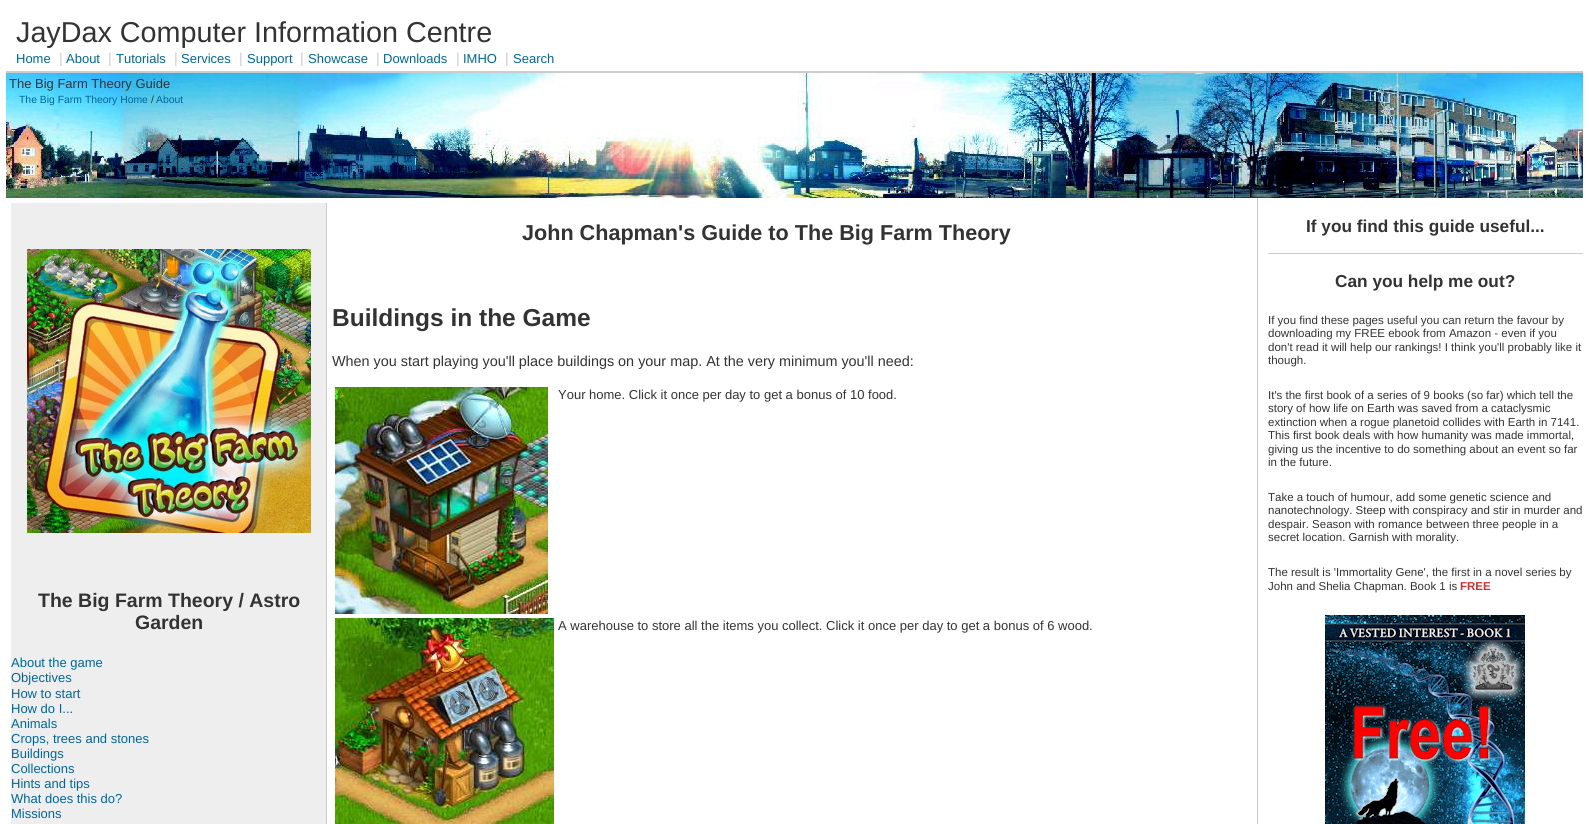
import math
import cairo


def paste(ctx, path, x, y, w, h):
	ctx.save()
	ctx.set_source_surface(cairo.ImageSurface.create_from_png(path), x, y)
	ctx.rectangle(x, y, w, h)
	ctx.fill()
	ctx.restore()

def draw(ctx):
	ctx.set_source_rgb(1, 1, 1)
	ctx.paint()
	ctx.set_source_rgb(0.8, 0.8, 0.8)
	ctx.rectangle(6, 71, 1577, 2)
	ctx.fill()
	ctx.select_font_face('Liberation Sans')
	ctx.set_font_size(28.75)
	ctx.set_source_rgb(0.2, 0.2, 0.2)
	ctx.move_to(16, 42)
	ctx.show_text('JayDax Computer Information Centre')
	ctx.set_font_size(13)
	ctx.set_source_rgb(0, 0.4, 0.6)
	ctx.move_to(16, 63)
	ctx.show_text('Home')
	ctx.set_font_size(14.4)
	ctx.set_source_rgb(0.8, 0.8, 0.8)
	ctx.move_to(59, 63)
	ctx.show_text('|')
	ctx.set_font_size(13)
	ctx.set_source_rgb(0, 0.4, 0.6)
	ctx.move_to(66, 63)
	ctx.show_text('About')
	ctx.set_font_size(14.4)
	ctx.set_source_rgb(0.8, 0.8, 0.8)
	ctx.move_to(108, 63)
	ctx.show_text('|')
	ctx.set_font_size(13)
	ctx.set_source_rgb(0, 0.4, 0.6)
	ctx.move_to(116, 63)
	ctx.show_text('Tutorials')
	ctx.set_font_size(14.4)
	ctx.set_source_rgb(0.8, 0.8, 0.8)
	ctx.move_to(174, 63)
	ctx.show_text('|')
	ctx.set_font_size(13)
	ctx.set_source_rgb(0, 0.4, 0.6)
	ctx.move_to(181, 63)
	ctx.show_text('Services')
	ctx.set_font_size(14.4)
	ctx.set_source_rgb(0.8, 0.8, 0.8)
	ctx.move_to(239, 63)
	ctx.show_text('|')
	ctx.set_font_size(13)
	ctx.set_source_rgb(0, 0.4, 0.6)
	ctx.move_to(247, 63)
	ctx.show_text('Support')
	ctx.set_font_size(14.4)
	ctx.set_source_rgb(0.8, 0.8, 0.8)
	ctx.move_to(300, 63)
	ctx.show_text('|')
	ctx.set_font_size(13)
	ctx.set_source_rgb(0, 0.4, 0.6)
	ctx.move_to(308, 63)
	ctx.show_text('Showcase')
	ctx.set_font_size(14.4)
	ctx.set_source_rgb(0.8, 0.8, 0.8)
	ctx.move_to(376, 63)
	ctx.show_text('|')
	ctx.set_font_size(13)
	ctx.set_source_rgb(0, 0.4, 0.6)
	ctx.move_to(383, 63)
	ctx.show_text('Downloads')
	ctx.set_font_size(14.4)
	ctx.set_source_rgb(0.8, 0.8, 0.8)
	ctx.move_to(456, 63)
	ctx.show_text('|')
	ctx.set_font_size(13)
	ctx.set_source_rgb(0, 0.4, 0.6)
	ctx.move_to(463, 63)
	ctx.show_text('IMHO')
	ctx.set_font_size(14.4)
	ctx.set_source_rgb(0.8, 0.8, 0.8)
	ctx.move_to(505, 63)
	ctx.show_text('|')
	ctx.set_font_size(13)
	ctx.set_source_rgb(0, 0.4, 0.6)
	ctx.move_to(513, 63)
	ctx.show_text('Search')
	paste(ctx, 'media/1.png', 6, 73, 1577, 125)
	ctx.set_source_rgb(0.2, 0.2, 0.2)
	ctx.move_to(9, 88)
	ctx.show_text('The Big Farm Theory Guide')
	ctx.set_font_size(10.4)
	ctx.set_source_rgb(0, 0.4, 0.6)
	ctx.move_to(19, 103)
	ctx.show_text('The Big Farm Theory Home')
	ctx.set_source_rgb(0.2, 0.2, 0.2)
	ctx.move_to(151, 103)
	ctx.show_text('/')
	ctx.set_source_rgb(0, 0.4, 0.6)
	ctx.move_to(156, 103)
	ctx.show_text('About')
	ctx.select_font_face('Liberation Sans', cairo.FONT_SLANT_NORMAL, cairo.FONT_WEIGHT_BOLD)
	ctx.set_font_size(21.6)
	ctx.set_source_rgb(0.2, 0.2, 0.2)
	ctx.move_to(522, 240)
	ctx.show_text('John Chapman\'s Guide to The Big Farm Theory')
	ctx.set_font_size(24.5)
	ctx.move_to(332, 326)
	ctx.show_text('Buildings in the Game')
	ctx.select_font_face('Liberation Sans')
	ctx.set_font_size(14.4)
	ctx.move_to(332, 366)
	ctx.show_text('When you start playing you\'ll place buildings on your map. At the very minimum you\'ll need:')
	paste(ctx, 'media/2.png', 335, 387, 213, 227)
	ctx.set_font_size(13)
	ctx.move_to(558, 399)
	ctx.show_text('Your home. Click it once per day to get a bonus of 10 food.')
	paste(ctx, 'media/3.png', 335, 618, 219, 206)
	ctx.move_to(558, 630)
	ctx.show_text('A warehouse to store all the items you collect. Click it once per day to get a bonus of 6 wood.')
	ctx.set_source_rgb(0.8, 0.8, 0.8)
	ctx.rectangle(1257, 198, 1, 626)
	ctx.fill()
	ctx.select_font_face('Liberation Sans', cairo.FONT_SLANT_NORMAL, cairo.FONT_WEIGHT_BOLD)
	ctx.set_font_size(17.25)
	ctx.set_source_rgb(0.2, 0.2, 0.2)
	ctx.move_to(1306, 232)
	ctx.show_text('If you find this guide useful...')
	ctx.set_source_rgb(0.8, 0.8, 0.8)
	ctx.rectangle(1268, 253, 315, 1)
	ctx.fill()
	ctx.set_source_rgb(0.2, 0.2, 0.2)
	ctx.move_to(1335, 287)
	ctx.show_text('Can you help me out?')
	ctx.select_font_face('Liberation Sans')
	ctx.set_font_size(11.5)
	for x, y, s in [
		(1268, 324, 'If you find these pages useful you can return the favour by'),
		(1268, 337, 'downloading my FREE ebook from Amazon - even if you'),
		(1268, 351, 'don\'t read it will help our rankings! I think you\'ll probably like it'),
		(1268, 364, 'though.'),
		(1268, 399, 'It\'s the first book of a series of 9 books (so far) which tell the'),
		(1268, 412, 'story of how life on Earth was saved from a cataclysmic'),
		(1268, 426, 'extinction when a rogue planetoid collides with Earth in 7141.'),
		(1268, 439, 'This first book deals with how humanity was made immortal,'),
		(1268, 453, 'giving us the incentive to do something about an event so far'),
		(1268, 466, 'in the future.'),
		(1268, 501, 'Take a touch of humour, add some genetic science and'),
		(1268, 514, 'nanotechnology. Steep with conspiracy and stir in murder and'),
		(1268, 528, 'despair. Season with romance between three people in a'),
		(1268, 541, 'secret location. Garnish with morality.'),
		(1268, 576, 'The result is \'Immortality Gene\', the first in a novel series by'),
		(1268, 590, 'John and Shelia Chapman. Book 1 is'),
	]:
		ctx.move_to(x, y)
		ctx.show_text(s)
	ctx.select_font_face('Liberation Sans', cairo.FONT_SLANT_NORMAL, cairo.FONT_WEIGHT_BOLD)
	ctx.set_source_rgb(0.8, 0.2, 0.2)
	ctx.move_to(1460, 590)
	ctx.show_text('FREE')
	paste(ctx, 'media/4.png', 1325, 615, 200, 209)
	ctx.set_source_rgb(0.933, 0.933, 0.933)
	ctx.rectangle(11, 203, 315, 621)
	ctx.fill()
	ctx.set_source_rgb(0.8, 0.8, 0.8)
	ctx.rectangle(326, 203, 1, 621)
	ctx.fill()
	paste(ctx, 'media/5.png', 27, 249, 284, 284)
	ctx.set_font_size(19.5)
	ctx.set_source_rgb(0.2, 0.2, 0.2)
	ctx.move_to(38, 607)
	ctx.show_text('The Big Farm Theory / Astro')
	ctx.move_to(135, 629)
	ctx.show_text('Garden')
	ctx.select_font_face('Liberation Sans')
	ctx.set_font_size(13)
	ctx.set_source_rgb(0, 0.4, 0.6)
	for x, y, s in [
		(11, 667, 'About the game'),
		(11, 682, 'Objectives'),
		(11, 698, 'How to start'),
		(11, 713, 'How do I...'),
		(11, 728, 'Animals'),
		(11, 743, 'Crops, trees and stones'),
		(11, 758, 'Buildings'),
		(11, 773, 'Collections'),
		(11, 788, 'Hints and tips'),
		(11, 803, 'What does this do?'),
		(11, 818, 'Missions'),
	]:
		ctx.move_to(x, y)
		ctx.show_text(s)


surface = cairo.ImageSurface(cairo.FORMAT_RGB24, 1589, 824)
ctx = cairo.Context(surface)
options = cairo.FontOptions()
options.set_hint_metrics(cairo.HINT_METRICS_OFF)
options.set_hint_style(cairo.HINT_STYLE_NONE)
ctx.set_font_options(options)
ctx.set_miter_limit(4)
draw(ctx)
surface.write_to_png('image.png')
